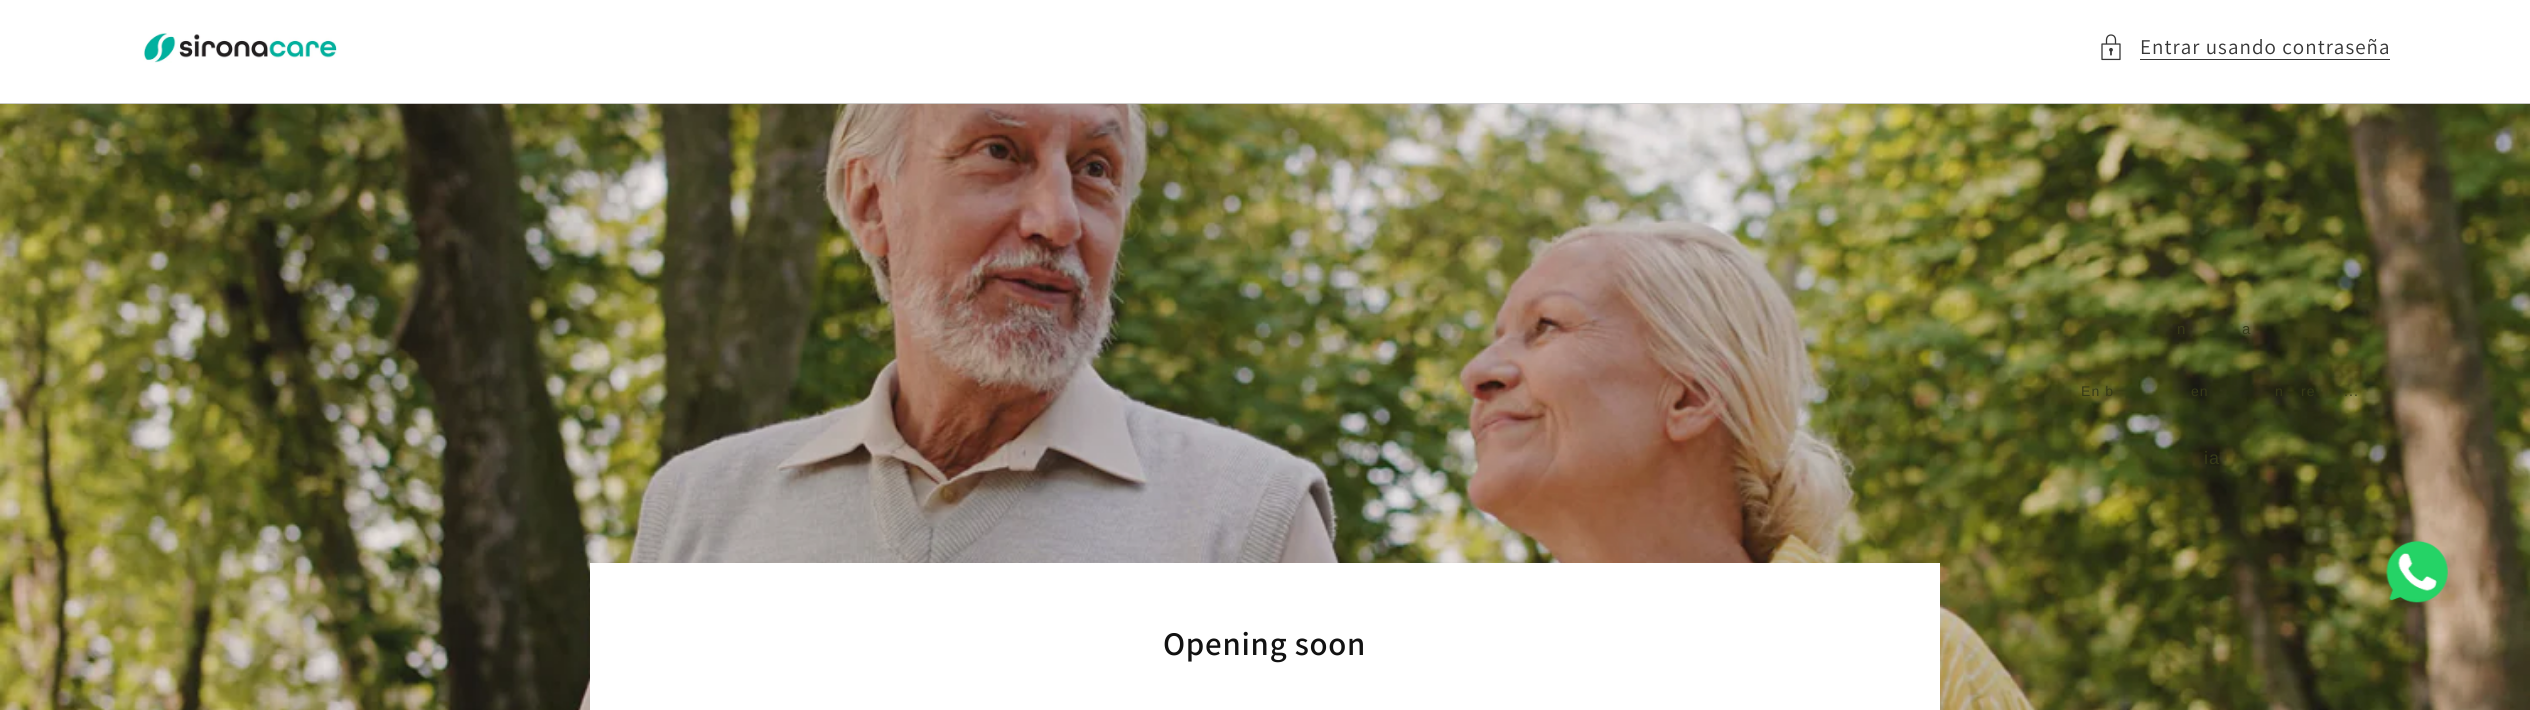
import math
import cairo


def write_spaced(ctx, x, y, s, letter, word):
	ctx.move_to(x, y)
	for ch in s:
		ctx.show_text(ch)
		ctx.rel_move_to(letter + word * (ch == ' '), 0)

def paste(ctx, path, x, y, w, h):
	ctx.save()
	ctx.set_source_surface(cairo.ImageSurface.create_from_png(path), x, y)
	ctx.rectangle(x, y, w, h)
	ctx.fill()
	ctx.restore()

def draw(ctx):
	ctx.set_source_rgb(1, 1, 1)
	ctx.paint()
	paste(ctx, 'media/1.png', 143, 32, 194, 31)
	paste(ctx, 'media/2.png', 2101, 34, 20, 27)
	ctx.select_font_face('Assistant')
	ctx.set_font_size(21)
	ctx.set_source_rgb(0.212, 0.212, 0.212)
	write_spaced(ctx, 2140, 54, 'Entrar usando contraseña', 1.05, 0)
	ctx.rectangle(2140, 59, 250, 1)
	ctx.fill()
	ctx.set_source_rgb(0.816, 0.816, 0.816)
	ctx.rectangle(0, 103, 2530, 1)
	ctx.fill()
	paste(ctx, 'media/4.png', 0, 103, 2530, 607)
	ctx.select_font_face('Liberation Sans')
	ctx.set_font_size(15)
	ctx.set_source_rgb(0.212, 0.227, 0.09)
	write_spaced(ctx, 2177, 334, 'n', 1.05, 0)
	write_spaced(ctx, 2242, 334, 'a', 1.05, 0)
	ctx.set_font_size(14)
	for x, y, s in [
		(2081, 396, 'En b'),
		(2191, 396, 'en'),
		(2275, 396, 'n'),
		(2301, 396, 're'),
		(2344, 396, '...'),
	]:
		write_spaced(ctx, x, y, s, 1.05, 0)
	ctx.set_font_size(18)
	write_spaced(ctx, 2204, 464, 'ia', 1.05, 0)
	paste(ctx, 'media/3.png', 2386, 541, 62, 62)
	ctx.set_source_rgb(1, 1, 1)
	ctx.rectangle(590, 563, 1350, 147)
	ctx.fill()
	ctx.select_font_face('Assistant SemiBold')
	ctx.set_font_size(33)
	ctx.set_source_rgb(0.071, 0.071, 0.071)
	write_spaced(ctx, 1163, 655, 'Opening soon', 0.75, 0)


surface = cairo.ImageSurface(cairo.FORMAT_RGB24, 2530, 710)
ctx = cairo.Context(surface)
options = cairo.FontOptions()
options.set_hint_metrics(cairo.HINT_METRICS_OFF)
options.set_hint_style(cairo.HINT_STYLE_NONE)
ctx.set_font_options(options)
ctx.set_miter_limit(4)
draw(ctx)
surface.write_to_png('image.png')
